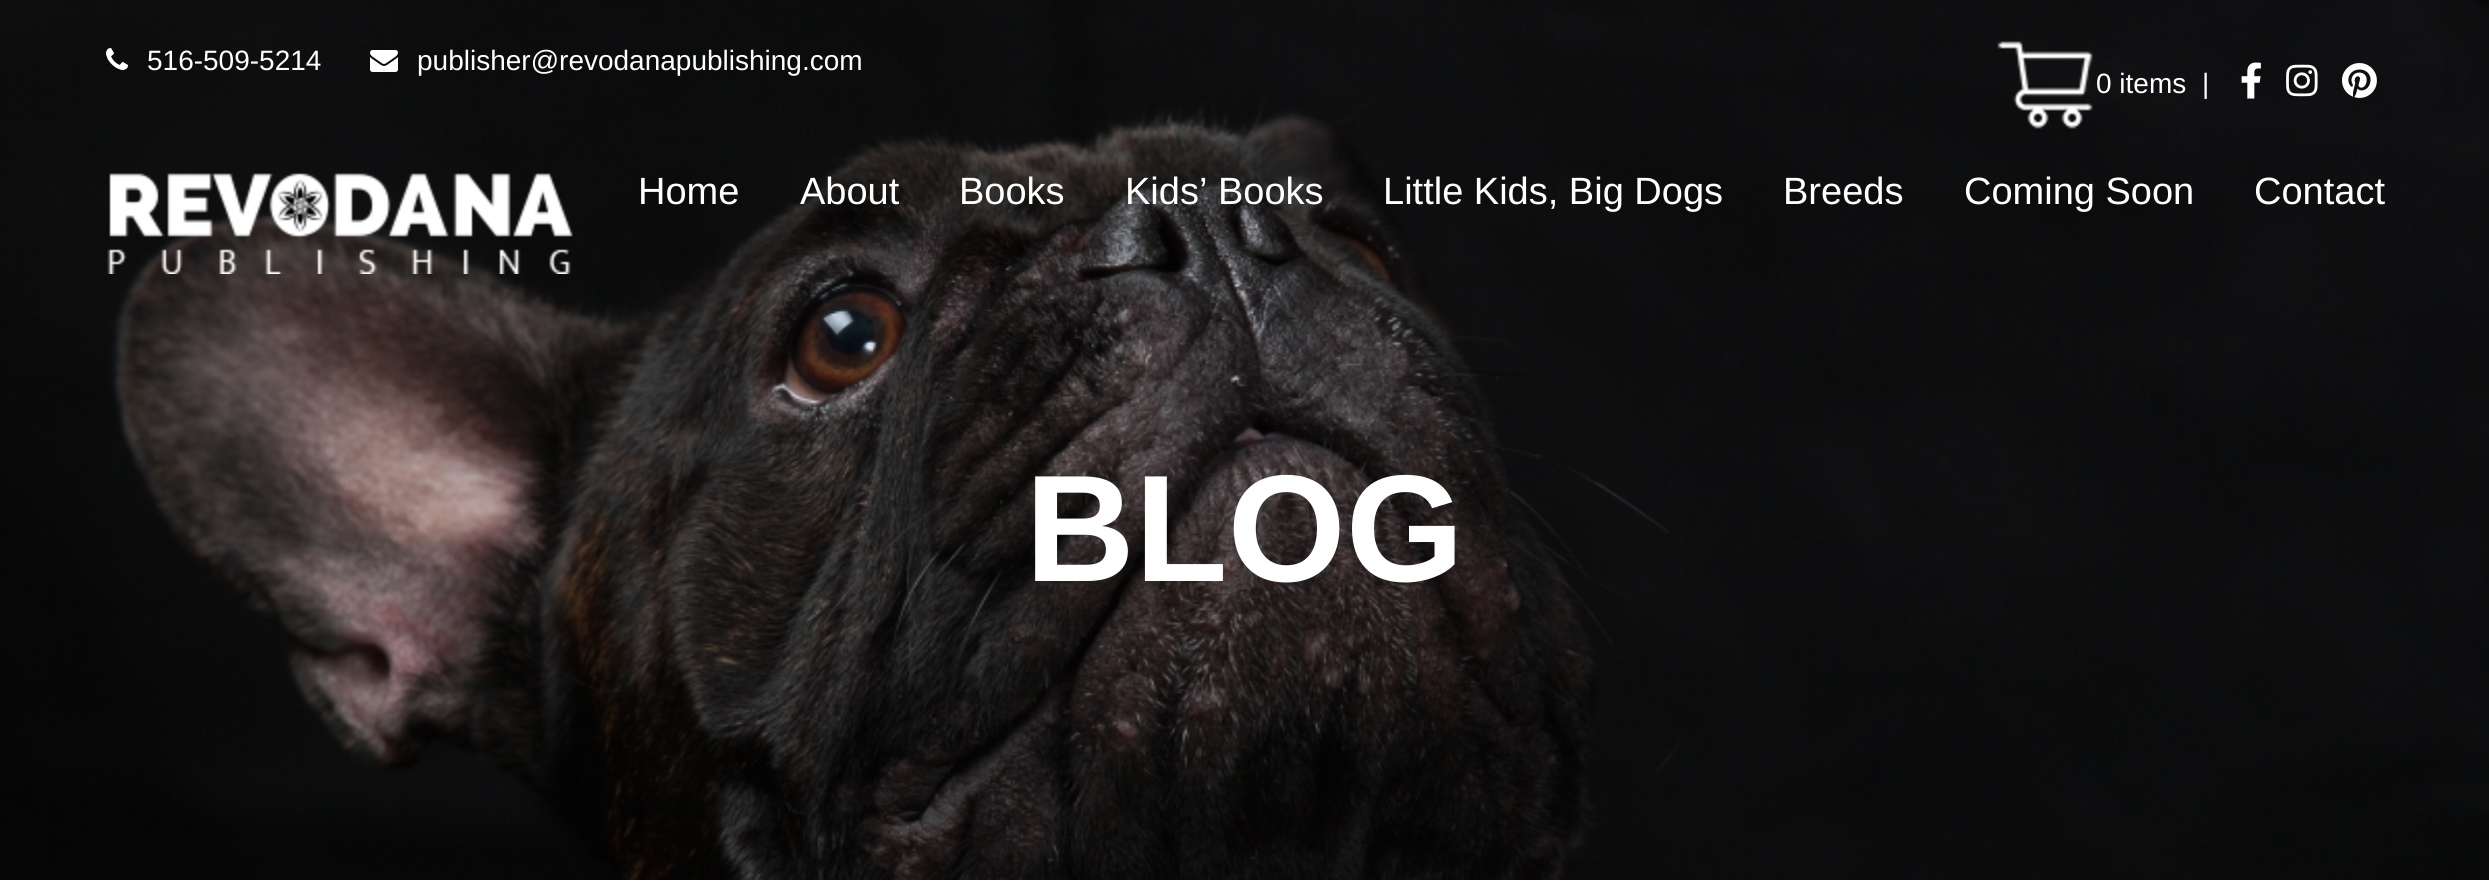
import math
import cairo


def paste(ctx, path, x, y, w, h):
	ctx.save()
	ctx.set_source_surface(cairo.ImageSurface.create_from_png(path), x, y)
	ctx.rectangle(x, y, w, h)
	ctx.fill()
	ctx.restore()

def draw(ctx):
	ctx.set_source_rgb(1, 1, 1)
	ctx.paint()
	paste(ctx, 'media/8.png', 0, 0, 2489, 880)
	paste(ctx, 'media/1.png', 106, 48, 22, 22)
	ctx.select_font_face('Liberation Sans')
	ctx.set_font_size(28)
	ctx.set_source_rgb(1, 1, 1)
	ctx.move_to(147, 70)
	ctx.show_text('516-509-5214')
	paste(ctx, 'media/2.png', 370, 50, 28, 22)
	ctx.move_to(417, 70)
	ctx.show_text('publisher@revodanapublishing.com')
	paste(ctx, 'media/3.png', 1997, 41, 96, 88)
	ctx.move_to(2096, 93)
	ctx.show_text('0 items')
	ctx.move_to(2202, 93)
	ctx.show_text('|')
	paste(ctx, 'media/4.png', 2241, 62, 20, 37)
	paste(ctx, 'media/5.png', 2286, 64, 32, 33)
	paste(ctx, 'media/6.png', 2342, 63, 35, 35)
	paste(ctx, 'media/7.png', 107, 173, 466, 101)
	ctx.set_font_size(38)
	for x, y, s in [
		(638, 204, 'Home'),
		(800, 204, 'About'),
		(959, 204, 'Books'),
		(1125, 204, 'Kids’ Books'),
		(1383, 204, 'Little Kids, Big Dogs'),
		(1783, 204, 'Breeds'),
		(1964, 204, 'Coming Soon'),
		(2254, 204, 'Contact'),
	]:
		ctx.move_to(x, y)
		ctx.show_text(s)
	ctx.select_font_face('Liberation Sans', cairo.FONT_SLANT_NORMAL, cairo.FONT_WEIGHT_BOLD)
	ctx.set_font_size(152)
	ctx.move_to(1025, 581)
	ctx.show_text('BLOG')


surface = cairo.ImageSurface(cairo.FORMAT_RGB24, 2489, 881)
ctx = cairo.Context(surface)
options = cairo.FontOptions()
options.set_hint_metrics(cairo.HINT_METRICS_OFF)
options.set_hint_style(cairo.HINT_STYLE_NONE)
ctx.set_font_options(options)
ctx.set_miter_limit(4)
draw(ctx)
surface.write_to_png('image.png')
